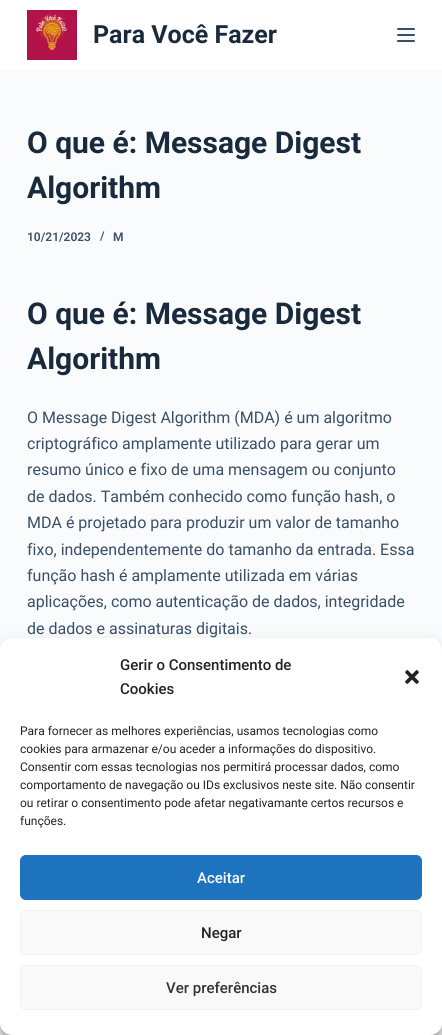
import math
import cairo


def round_path(ctx, x, y, w, h, r):
	ctx.new_sub_path()
	for i, (u, v) in enumerate([(x + w - r, y + h - r), (x + r, y + h - r), (x + r, y + r), (x + w - r, y + r)]):
		ctx.arc(u, v, r, i * math.pi / 2, (i + 1) * math.pi / 2)
	ctx.close_path()

def blur_box(ctx, x, y, w, h, r, blur, alpha):
	ctx.push_group_with_content(cairo.CONTENT_ALPHA)
	ctx.set_operator(cairo.OPERATOR_SOURCE)
	for i in range(15, -16, -2):
		e = blur * i / 6
		if min(w, h) + 2 * e > 0:
			ctx.set_source_rgba(0, 0, 0, alpha * math.erfc((i - 1) / 8.5) / 2)
			round_path(ctx, x - e, y - e, w + 2 * e, h + 2 * e, max(0, min(r + e + blur * .6, min(w, h) / 2 + e)))
			ctx.fill()
	ctx.mask(ctx.pop_group())

def paste(ctx, path, x, y, w, h):
	ctx.save()
	ctx.set_source_surface(cairo.ImageSurface.create_from_png(path), x, y)
	ctx.rectangle(x, y, w, h)
	ctx.fill()
	ctx.restore()

def draw(ctx):
	ctx.set_source_rgb(0.98, 0.984, 0.988)
	ctx.paint()
	ctx.set_source_rgb(1, 1, 1)
	ctx.rectangle(0, 0, 442, 70)
	ctx.fill()
	paste(ctx, 'media/1.png', 27, 10, 50, 50)
	ctx.select_font_face('Roboto', cairo.FONT_SLANT_NORMAL, cairo.FONT_WEIGHT_BOLD)
	ctx.set_font_size(25)
	ctx.set_source_rgb(0.098, 0.165, 0.239)
	ctx.move_to(93, 43)
	ctx.show_text('Para Você Fazer')
	ctx.set_source_rgb(0.227, 0.31, 0.4)
	round_path(ctx, 397, 28, 18, 2, 1)
	ctx.fill()
	round_path(ctx, 397, 34, 18, 2, 1)
	ctx.fill()
	round_path(ctx, 397, 40, 18, 2, 1)
	ctx.fill()
	ctx.set_font_size(30)
	ctx.set_source_rgb(0.098, 0.165, 0.239)
	ctx.move_to(27, 153)
	ctx.show_text('O que é: Message Digest')
	ctx.move_to(27, 198)
	ctx.show_text('Algorithm')
	ctx.select_font_face('Roboto SemiBold')
	ctx.set_font_size(12)
	ctx.set_source_rgb(0.227, 0.31, 0.4)
	for x, y, s in [
		(27, 241, '10/21/2023'),
		(100, 240, '/'),
		(113, 241, 'M'),
	]:
		ctx.move_to(x, y)
		ctx.show_text(s)
	ctx.select_font_face('Roboto', cairo.FONT_SLANT_NORMAL, cairo.FONT_WEIGHT_BOLD)
	ctx.set_font_size(30)
	ctx.set_source_rgb(0.098, 0.165, 0.239)
	ctx.move_to(27, 324)
	ctx.show_text('O que é: Message Digest')
	ctx.move_to(27, 369)
	ctx.show_text('Algorithm')
	ctx.select_font_face('Roboto')
	ctx.set_font_size(16)
	ctx.set_source_rgb(0.227, 0.31, 0.4)
	for x, y, s in [
		(27, 423, 'O Message Digest Algorithm (MDA) é um algoritmo'),
		(27, 449, 'criptográfico amplamente utilizado para gerar um'),
		(27, 475, 'resumo único e fixo de uma mensagem ou conjunto'),
		(27, 502, 'de dados. Também conhecido como função hash, o'),
		(27, 528, 'MDA é projetado para produzir um valor de tamanho'),
		(27, 555, 'fixo, independentemente do tamanho da entrada. Essa'),
		(27, 581, 'função hash é amplamente utilizada em várias'),
		(27, 607, 'aplicações, como autenticação de dados, integridade'),
		(27, 634, 'de dados e assinaturas digitais.'),
	]:
		ctx.move_to(x, y)
		ctx.show_text(s)
	ctx.set_source_rgb(0, 0, 0)
	blur_box(ctx, 0, 644, 442, 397, 12, 3, 0.23)
	blur_box(ctx, 0, 648, 442, 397, 12, 10, 0.19)
	ctx.set_source_rgb(1, 1, 1)
	round_path(ctx, 0, 638, 442, 397, 12)
	ctx.fill()
	ctx.select_font_face('Roboto Medium')
	ctx.set_font_size(15)
	ctx.set_source_rgb(0.133, 0.133, 0.133)
	ctx.move_to(120, 670)
	ctx.show_text('Gerir o Consentimento de')
	ctx.move_to(120, 694)
	ctx.show_text('Cookies')
	paste(ctx, 'media/2.png', 405, 670, 14, 14)
	ctx.select_font_face('Roboto')
	ctx.set_font_size(12)
	for x, y, s in [
		(20, 735, 'Para fornecer as melhores experiências, usamos tecnologias como'),
		(20, 753, 'cookies para armazenar e/ou aceder a informações do dispositivo.'),
		(20, 771, 'Consentir com essas tecnologias nos permitirá processar dados, como'),
		(20, 789, 'comportamento de navegação ou IDs exclusivos neste site. Não consentir'),
		(20, 807, 'ou retirar o consentimento pode afetar negativamante certos recursos e'),
		(20, 825, 'funções.'),
	]:
		ctx.move_to(x, y)
		ctx.show_text(s)
	ctx.set_source_rgb(0.118, 0.451, 0.745)
	round_path(ctx, 20.5, 855.5, 401, 44, 5.5)
	ctx.fill_preserve()
	ctx.set_line_width(1)
	ctx.stroke()
	ctx.select_font_face('Roboto Medium')
	ctx.set_font_size(15)
	ctx.set_source_rgb(1, 1, 1)
	ctx.move_to(197, 883)
	ctx.show_text('Aceitar')
	ctx.set_source_rgb(0.976, 0.976, 0.976)
	round_path(ctx, 20.5, 910.5, 401, 44, 5.5)
	ctx.fill_preserve()
	ctx.set_source_rgb(0.949, 0.949, 0.949)
	ctx.stroke()
	ctx.set_source_rgb(0.133, 0.133, 0.133)
	ctx.move_to(201, 938)
	ctx.show_text('Negar')
	ctx.set_source_rgb(0.976, 0.976, 0.976)
	round_path(ctx, 20.5, 965.5, 401, 44, 5.5)
	ctx.fill_preserve()
	ctx.set_source_rgb(0.949, 0.949, 0.949)
	ctx.stroke()
	ctx.set_source_rgb(0.2, 0.2, 0.2)
	ctx.move_to(166, 993)
	ctx.show_text('Ver preferências')


surface = cairo.ImageSurface(cairo.FORMAT_RGB24, 442, 1035)
ctx = cairo.Context(surface)
options = cairo.FontOptions()
options.set_hint_metrics(cairo.HINT_METRICS_OFF)
options.set_hint_style(cairo.HINT_STYLE_NONE)
ctx.set_font_options(options)
ctx.set_miter_limit(4)
draw(ctx)
surface.write_to_png('image.png')
